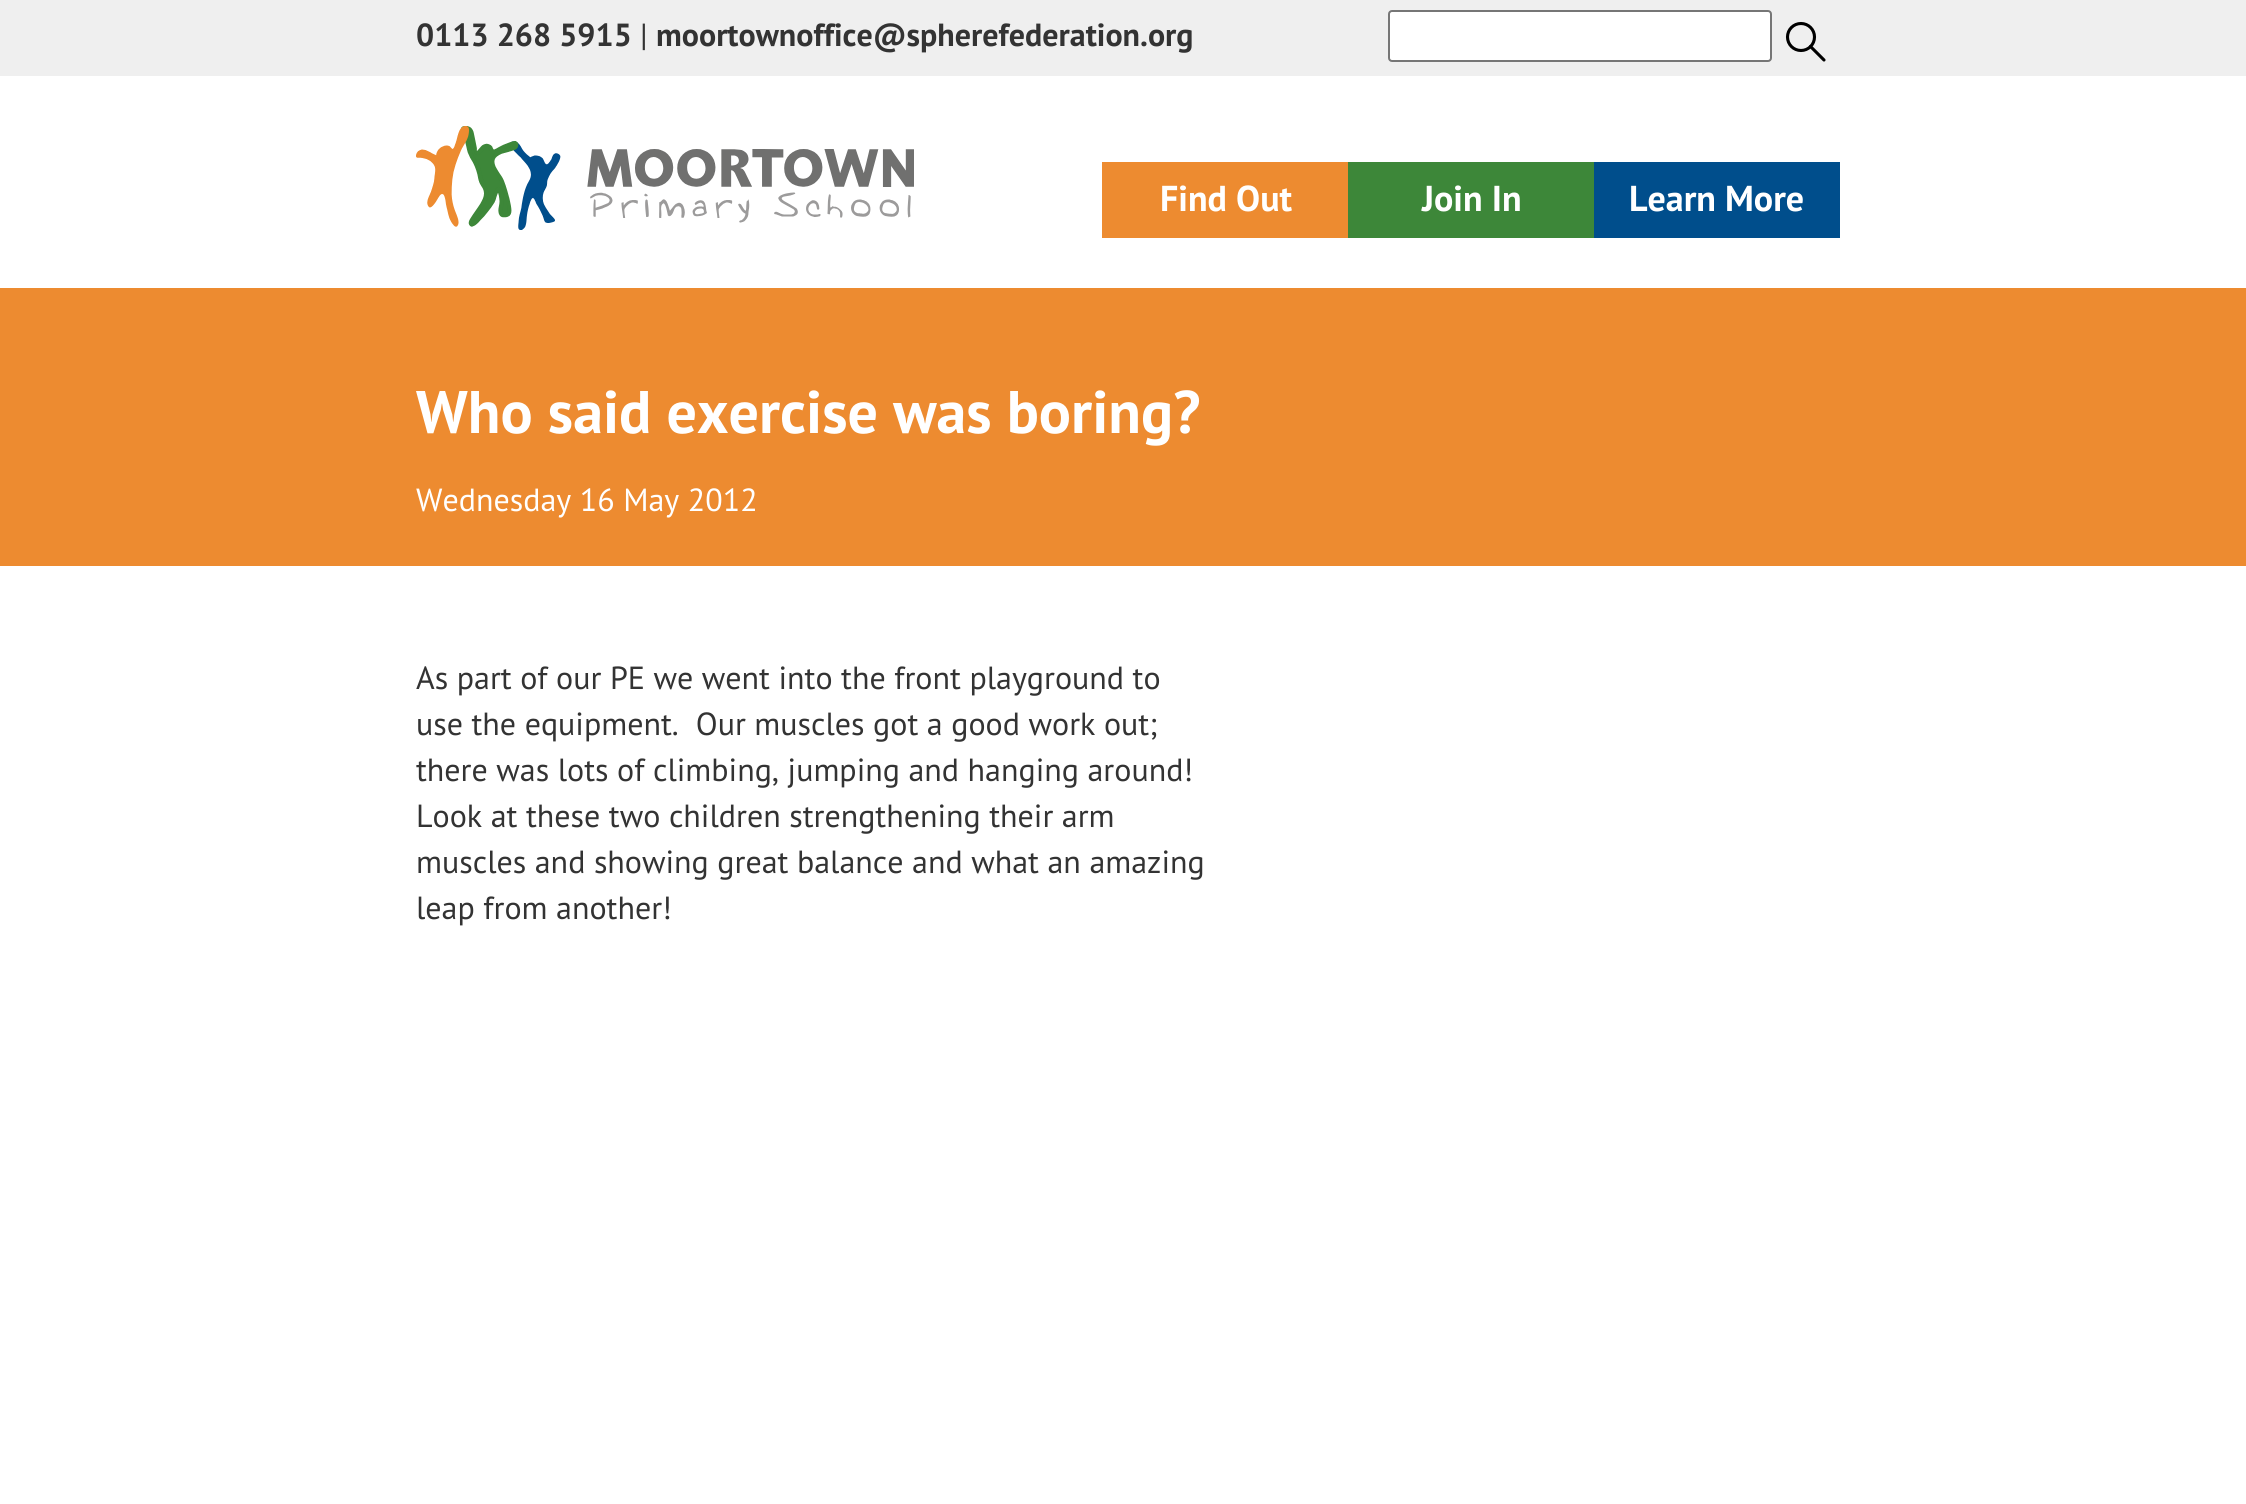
import math
import cairo


def round_path(ctx, x, y, w, h, r):
	ctx.new_sub_path()
	for i, (u, v) in enumerate([(x + w - r, y + h - r), (x + r, y + h - r), (x + r, y + r), (x + w - r, y + r)]):
		ctx.arc(u, v, r, i * math.pi / 2, (i + 1) * math.pi / 2)
	ctx.close_path()

def paste(ctx, path, x, y, w, h):
	ctx.save()
	ctx.set_source_surface(cairo.ImageSurface.create_from_png(path), x, y)
	ctx.rectangle(x, y, w, h)
	ctx.fill()
	ctx.restore()

def draw(ctx):
	ctx.set_source_rgb(0.937, 0.937, 0.937)
	ctx.paint()
	ctx.select_font_face('PT Sans', cairo.FONT_SLANT_NORMAL, cairo.FONT_WEIGHT_BOLD)
	ctx.set_font_size(32)
	ctx.set_source_rgb(0.2, 0.2, 0.2)
	ctx.move_to(416, 46)
	ctx.show_text('0113 268 5915')
	ctx.select_font_face('PT Sans')
	ctx.move_to(640, 46)
	ctx.show_text('|')
	ctx.select_font_face('PT Sans', cairo.FONT_SLANT_NORMAL, cairo.FONT_WEIGHT_BOLD)
	ctx.move_to(656, 46)
	ctx.show_text('moortownoffice@spherefederation.org')
	ctx.set_source_rgb(1, 1, 1)
	round_path(ctx, 1389, 11, 382, 50, 3)
	ctx.fill_preserve()
	ctx.set_source_rgb(0.463, 0.463, 0.463)
	ctx.stroke()
	ctx.new_path()
	ctx.move_to(1810.5, 46.5)
	ctx.line_to(1824, 60)
	ctx.set_source_rgb(0, 0, 0)
	ctx.set_line_width(3.1)
	ctx.set_line_cap(cairo.LINE_CAP_ROUND)
	ctx.set_line_join(cairo.LINE_JOIN_ROUND)
	ctx.stroke()
	ctx.arc(1801, 37, 13.5, 0, 2 * math.pi)
	ctx.set_line_cap(cairo.LINE_CAP_BUTT)
	ctx.set_line_join(cairo.LINE_JOIN_MITER)
	ctx.stroke()
	ctx.set_source_rgb(1, 1, 1)
	ctx.rectangle(0, 76, 2246, 212)
	ctx.fill()
	paste(ctx, 'media/1.png', 416, 126, 498, 104)
	ctx.set_source_rgb(0.929, 0.545, 0.188)
	ctx.rectangle(1102, 162, 246, 76)
	ctx.fill()
	ctx.set_font_size(36)
	ctx.set_source_rgb(1, 1, 1)
	ctx.move_to(1160, 211)
	ctx.show_text('Find Out')
	ctx.set_source_rgb(0.239, 0.529, 0.224)
	ctx.rectangle(1348, 162, 246, 76)
	ctx.fill()
	ctx.set_source_rgb(1, 1, 1)
	ctx.move_to(1422, 211)
	ctx.show_text('Join In')
	ctx.set_source_rgb(0, 0.306, 0.549)
	ctx.rectangle(1594, 162, 246, 76)
	ctx.fill()
	ctx.set_source_rgb(1, 1, 1)
	ctx.move_to(1629, 211)
	ctx.show_text('Learn More')
	ctx.set_source_rgb(0.929, 0.545, 0.188)
	ctx.rectangle(0, 288, 2246, 278)
	ctx.fill()
	ctx.set_font_size(60)
	ctx.set_source_rgb(1, 1, 1)
	ctx.move_to(416, 433)
	ctx.show_text('Who said exercise was boring?')
	ctx.select_font_face('PT Sans')
	ctx.set_font_size(32)
	ctx.move_to(416, 511)
	ctx.show_text('Wednesday 16 May 2012')
	ctx.rectangle(0, 566, 2246, 938)
	ctx.fill()
	ctx.set_source_rgb(0.2, 0.2, 0.2)
	for x, y, s in [
		(416, 689, 'As part of our PE we went into the front playground to'),
		(416, 735, 'use the equipment.  Our muscles got a good work out;'),
		(416, 781, 'there was lots of climbing, jumping and hanging around!'),
		(416, 827, 'Look at these two children strengthening their arm'),
		(416, 873, 'muscles and showing great balance and what an amazing'),
		(416, 919, 'leap from another!'),
	]:
		ctx.move_to(x, y)
		ctx.show_text(s)


surface = cairo.ImageSurface(cairo.FORMAT_RGB24, 2246, 1504)
ctx = cairo.Context(surface)
options = cairo.FontOptions()
options.set_hint_metrics(cairo.HINT_METRICS_OFF)
options.set_hint_style(cairo.HINT_STYLE_NONE)
ctx.set_font_options(options)
ctx.set_miter_limit(4)
draw(ctx)
surface.write_to_png('image.png')
